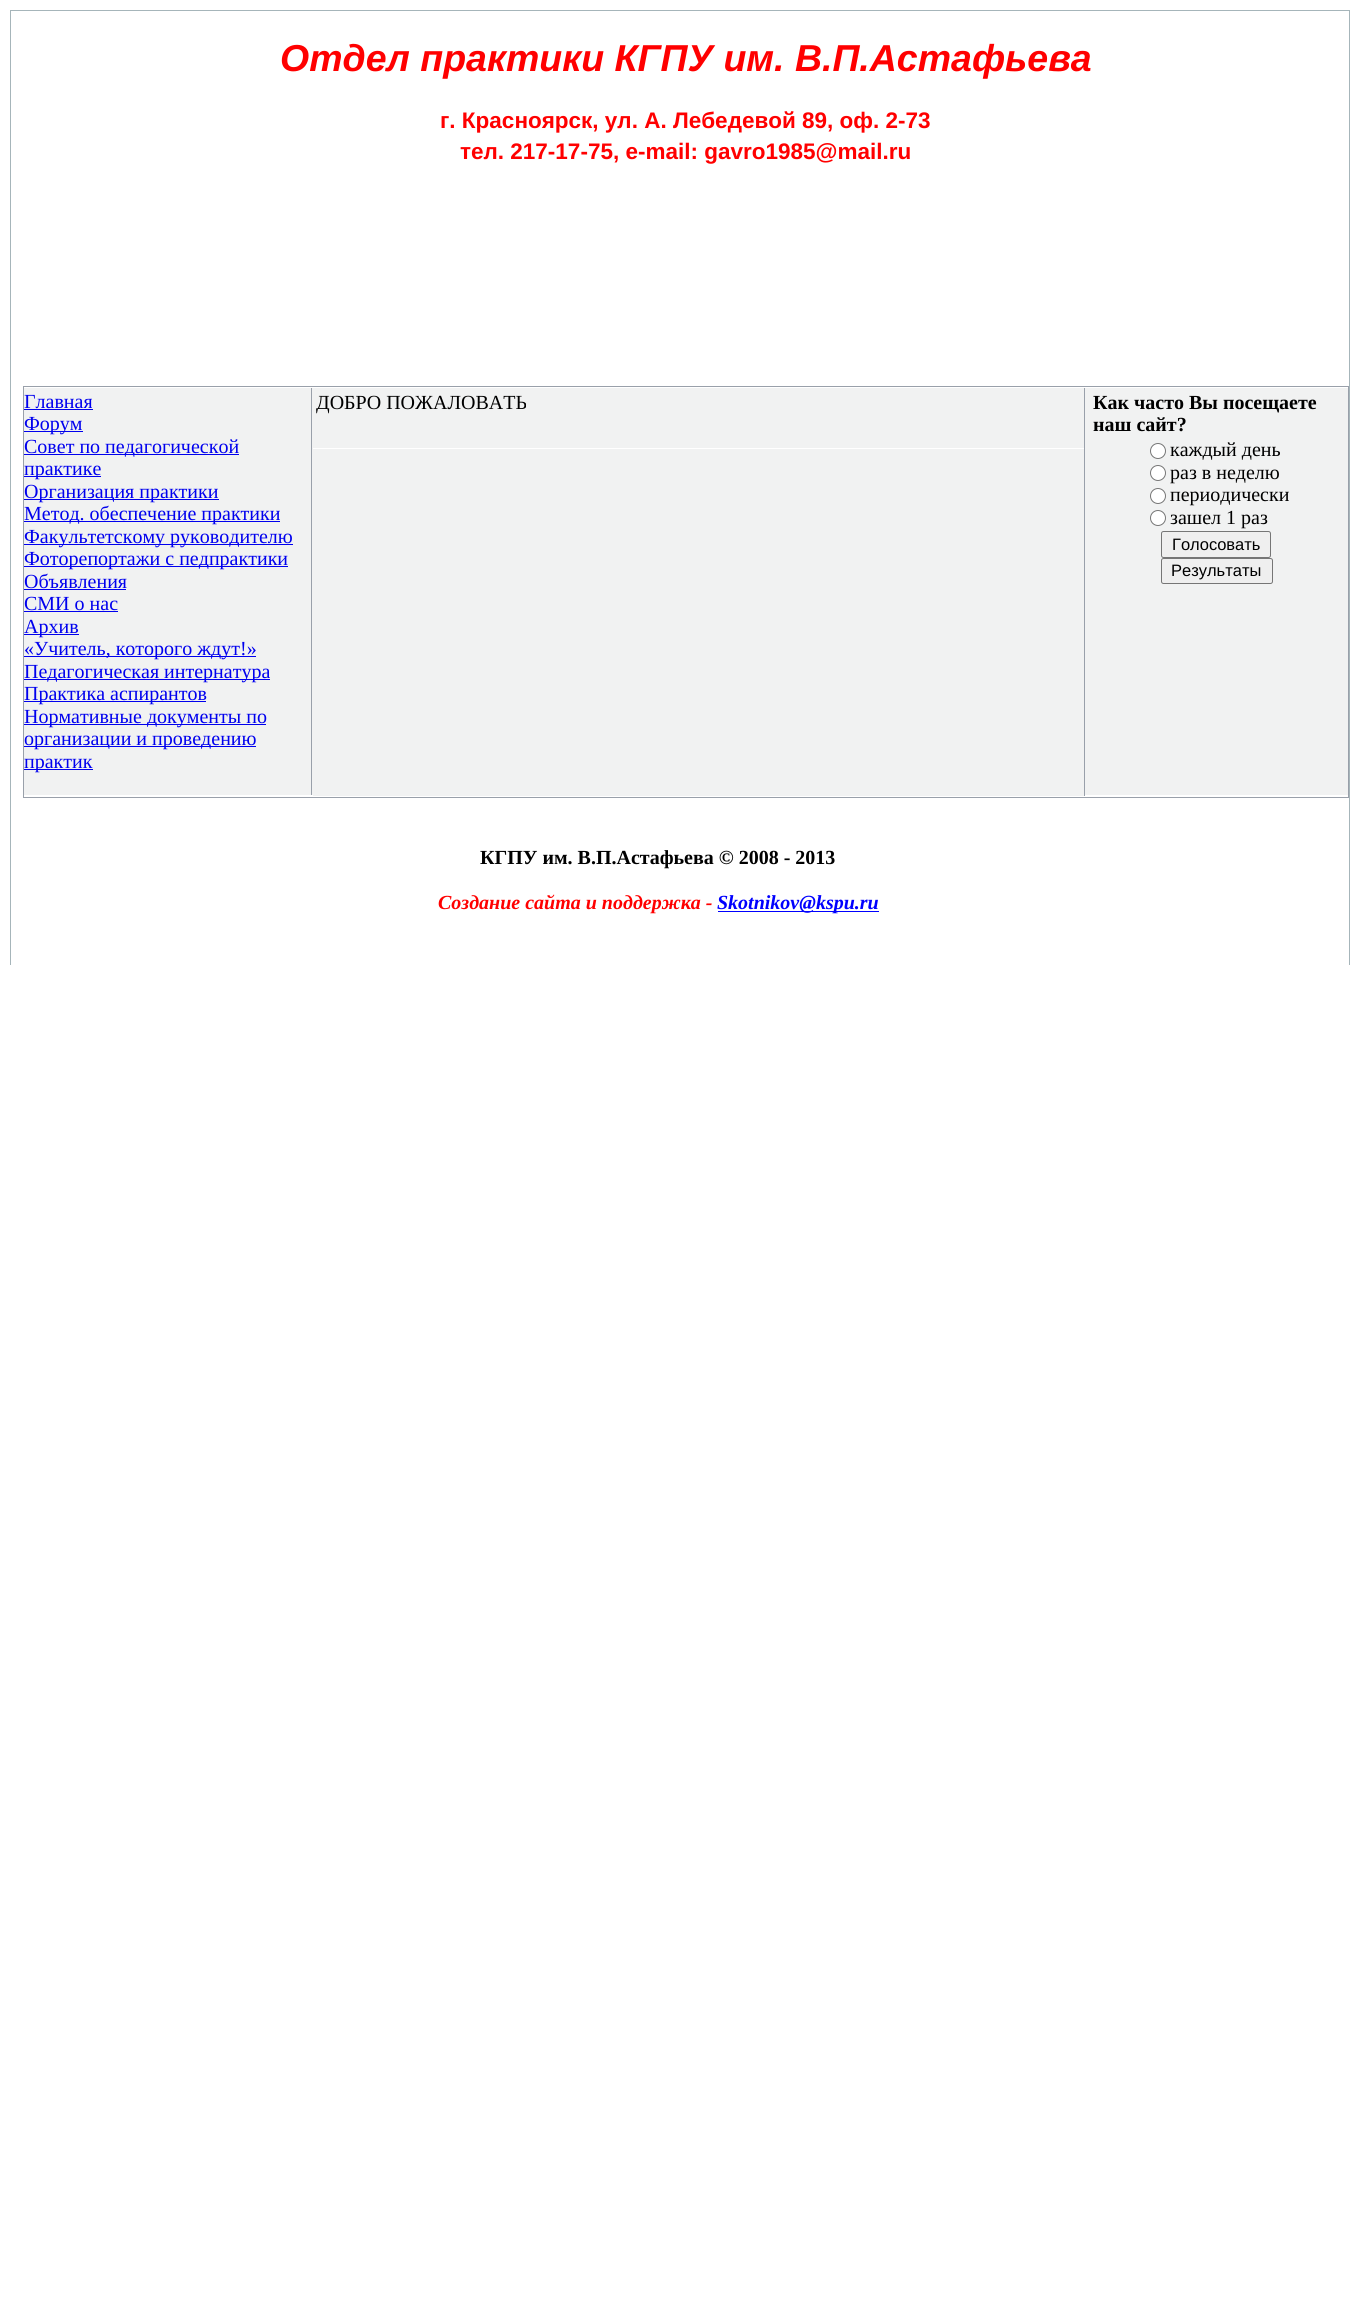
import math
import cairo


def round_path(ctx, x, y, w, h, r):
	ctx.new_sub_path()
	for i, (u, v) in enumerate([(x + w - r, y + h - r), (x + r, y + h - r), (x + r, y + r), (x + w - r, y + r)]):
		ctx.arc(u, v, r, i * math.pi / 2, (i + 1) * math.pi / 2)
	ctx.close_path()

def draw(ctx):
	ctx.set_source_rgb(1, 1, 1)
	ctx.paint()
	ctx.set_source_rgb(0.651, 0.71, 0.729)
	ctx.rectangle(10, 10, 1340, 1)
	ctx.rectangle(1349, 10, 1, 955)
	ctx.rectangle(10, 10, 1, 955)
	ctx.fill()
	ctx.select_font_face('Liberation Sans', cairo.FONT_SLANT_ITALIC, cairo.FONT_WEIGHT_BOLD)
	ctx.set_font_size(37.5)
	ctx.set_source_rgb(1, 0, 0)
	ctx.move_to(280, 71)
	ctx.show_text('Отдел практики КГПУ им. В.П.Астафьева')
	ctx.select_font_face('Liberation Sans', cairo.FONT_SLANT_NORMAL, cairo.FONT_WEIGHT_BOLD)
	ctx.set_font_size(22.5)
	ctx.move_to(440, 128)
	ctx.show_text('г. Красноярск, ул. А. Лебедевой 89, оф. 2-73')
	ctx.move_to(460, 159)
	ctx.show_text('тел. 217-17-75, e-mail: gavro1985@mail.ru')
	ctx.rectangle(23.5, 386.5, 1325, 411)
	ctx.set_source_rgb(0.6, 0.627, 0.667)
	ctx.set_line_width(1)
	ctx.stroke()
	ctx.set_source_rgb(0.945, 0.949, 0.949)
	ctx.rectangle(24, 388, 1324, 408)
	ctx.fill()
	ctx.set_source_rgb(0.6, 0.627, 0.667)
	ctx.rectangle(311, 388, 1, 408)
	ctx.fill()
	ctx.set_source_rgb(1, 1, 1)
	ctx.rectangle(24, 795, 289, 1)
	ctx.fill()
	ctx.select_font_face('Liberation Serif')
	ctx.set_font_size(20)
	ctx.set_source_rgb(0, 0, 0.933)
	ctx.move_to(24, 408)
	ctx.show_text('Главная')
	ctx.rectangle(24, 409, 69, 1)
	ctx.fill()
	ctx.rectangle(24, 431, 59, 1)
	ctx.fill()
	ctx.move_to(24, 430)
	ctx.show_text('Форум')
	ctx.rectangle(24, 454, 215, 1)
	ctx.fill()
	ctx.move_to(24, 453)
	ctx.show_text('Совет по педагогической')
	ctx.rectangle(24, 476, 77, 1)
	ctx.fill()
	ctx.move_to(24, 475)
	ctx.show_text('практике')
	ctx.rectangle(24, 499, 195, 1)
	ctx.fill()
	ctx.move_to(24, 498)
	ctx.show_text('Организация практики')
	ctx.rectangle(24, 521, 256, 1)
	ctx.fill()
	ctx.move_to(24, 520)
	ctx.show_text('Метод. обеспечение практики')
	ctx.rectangle(24, 544, 269, 1)
	ctx.fill()
	ctx.move_to(24, 543)
	ctx.show_text('Факультетскому руководителю')
	ctx.rectangle(24, 566, 264, 1)
	ctx.fill()
	ctx.move_to(24, 565)
	ctx.show_text('Фоторепортажи с педпрактики')
	ctx.move_to(24, 588)
	ctx.show_text('Объявления')
	ctx.rectangle(24, 589, 102, 1)
	ctx.fill()
	ctx.move_to(24, 610)
	ctx.show_text('СМИ о нас')
	ctx.rectangle(24, 611, 94, 1)
	ctx.fill()
	ctx.rectangle(24, 634, 55, 1)
	ctx.fill()
	ctx.move_to(24, 633)
	ctx.show_text('Архив')
	ctx.rectangle(24, 656, 232, 1)
	ctx.fill()
	ctx.move_to(24, 655)
	ctx.show_text('«Учитель, которого ждут!»')
	ctx.rectangle(24, 679, 246, 1)
	ctx.fill()
	ctx.move_to(24, 678)
	ctx.show_text('Педагогическая интернатура')
	ctx.rectangle(24, 701, 182, 1)
	ctx.fill()
	ctx.move_to(24, 700)
	ctx.show_text('Практика аспирантов')
	ctx.rectangle(24, 724, 242, 1)
	ctx.fill()
	ctx.move_to(24, 723)
	ctx.show_text('Нормативные документы по')
	ctx.rectangle(24, 746, 232, 1)
	ctx.fill()
	ctx.move_to(24, 745)
	ctx.show_text('организации и проведению')
	ctx.rectangle(24, 769, 69, 1)
	ctx.fill()
	ctx.move_to(24, 768)
	ctx.show_text('практик')
	ctx.set_source_rgb(0, 0, 0)
	ctx.move_to(316, 409)
	ctx.show_text('ДОБРО ПОЖАЛОВАТЬ')
	ctx.set_source_rgb(1, 1, 1)
	ctx.rectangle(313, 448, 771, 1)
	ctx.rectangle(1084, 795, 264, 1)
	ctx.fill()
	ctx.set_source_rgb(0.6, 0.627, 0.667)
	ctx.rectangle(1084, 388, 1, 408)
	ctx.fill()
	ctx.select_font_face('Liberation Serif', cairo.FONT_SLANT_NORMAL, cairo.FONT_WEIGHT_BOLD)
	ctx.set_source_rgb(0, 0, 0)
	ctx.move_to(1093, 409)
	ctx.show_text('Как часто Вы посещаете')
	ctx.move_to(1093, 431)
	ctx.show_text('наш сайт?')
	ctx.set_source_rgb(1, 1, 1)
	ctx.new_path()
	ctx.arc(1158, 451, 7.5, 0, 2 * math.pi)
	ctx.fill_preserve()
	ctx.set_source_rgb(0.463, 0.463, 0.463)
	ctx.stroke()
	ctx.select_font_face('Liberation Serif')
	ctx.set_source_rgb(0, 0, 0)
	ctx.move_to(1170, 456)
	ctx.show_text('каждый день')
	ctx.set_source_rgb(1, 1, 1)
	ctx.new_path()
	ctx.arc(1158, 473, 7.5, 0, 2 * math.pi)
	ctx.fill_preserve()
	ctx.set_source_rgb(0.463, 0.463, 0.463)
	ctx.stroke()
	ctx.set_source_rgb(0, 0, 0)
	ctx.move_to(1170, 479)
	ctx.show_text('раз в неделю')
	ctx.set_source_rgb(1, 1, 1)
	ctx.new_path()
	ctx.arc(1158, 496, 7.5, 0, 2 * math.pi)
	ctx.fill_preserve()
	ctx.set_source_rgb(0.463, 0.463, 0.463)
	ctx.stroke()
	ctx.set_source_rgb(0, 0, 0)
	ctx.move_to(1170, 501)
	ctx.show_text('периодически')
	ctx.set_source_rgb(1, 1, 1)
	ctx.new_path()
	ctx.arc(1158, 518, 7.5, 0, 2 * math.pi)
	ctx.fill_preserve()
	ctx.set_source_rgb(0.463, 0.463, 0.463)
	ctx.stroke()
	ctx.set_source_rgb(0, 0, 0)
	ctx.move_to(1170, 524)
	ctx.show_text('зашел 1 раз')
	ctx.set_source_rgb(0.937, 0.937, 0.937)
	round_path(ctx, 1161.5, 531.5, 109, 26, 2)
	ctx.fill_preserve()
	ctx.set_source_rgb(0.463, 0.463, 0.463)
	ctx.stroke()
	ctx.select_font_face('Liberation Sans')
	ctx.set_font_size(16.5)
	ctx.set_source_rgb(0, 0, 0)
	ctx.move_to(1172, 550)
	ctx.show_text('Голосовать')
	ctx.set_source_rgb(0.937, 0.937, 0.937)
	round_path(ctx, 1161.5, 558.5, 111, 25, 2)
	ctx.fill_preserve()
	ctx.set_source_rgb(0.463, 0.463, 0.463)
	ctx.stroke()
	ctx.set_source_rgb(0, 0, 0)
	ctx.move_to(1171, 576)
	ctx.show_text('Результаты')
	ctx.select_font_face('Liberation Serif', cairo.FONT_SLANT_NORMAL, cairo.FONT_WEIGHT_BOLD)
	ctx.set_font_size(20)
	ctx.move_to(480, 864)
	ctx.show_text('КГПУ им. В.П.Астафьева © 2008 - 2013')
	ctx.select_font_face('Liberation Serif', cairo.FONT_SLANT_ITALIC, cairo.FONT_WEIGHT_BOLD)
	ctx.set_source_rgb(1, 0, 0)
	ctx.move_to(438, 909)
	ctx.show_text('Создание сайта и поддержка -')
	ctx.set_source_rgb(0, 0, 1)
	ctx.rectangle(718, 911, 161, 1)
	ctx.fill()
	ctx.move_to(717, 909)
	ctx.show_text('Skotnikov@kspu.ru')


surface = cairo.ImageSurface(cairo.FORMAT_RGB24, 1360, 2310)
ctx = cairo.Context(surface)
options = cairo.FontOptions()
options.set_hint_metrics(cairo.HINT_METRICS_OFF)
options.set_hint_style(cairo.HINT_STYLE_NONE)
ctx.set_font_options(options)
ctx.set_miter_limit(4)
draw(ctx)
surface.write_to_png('image.png')
